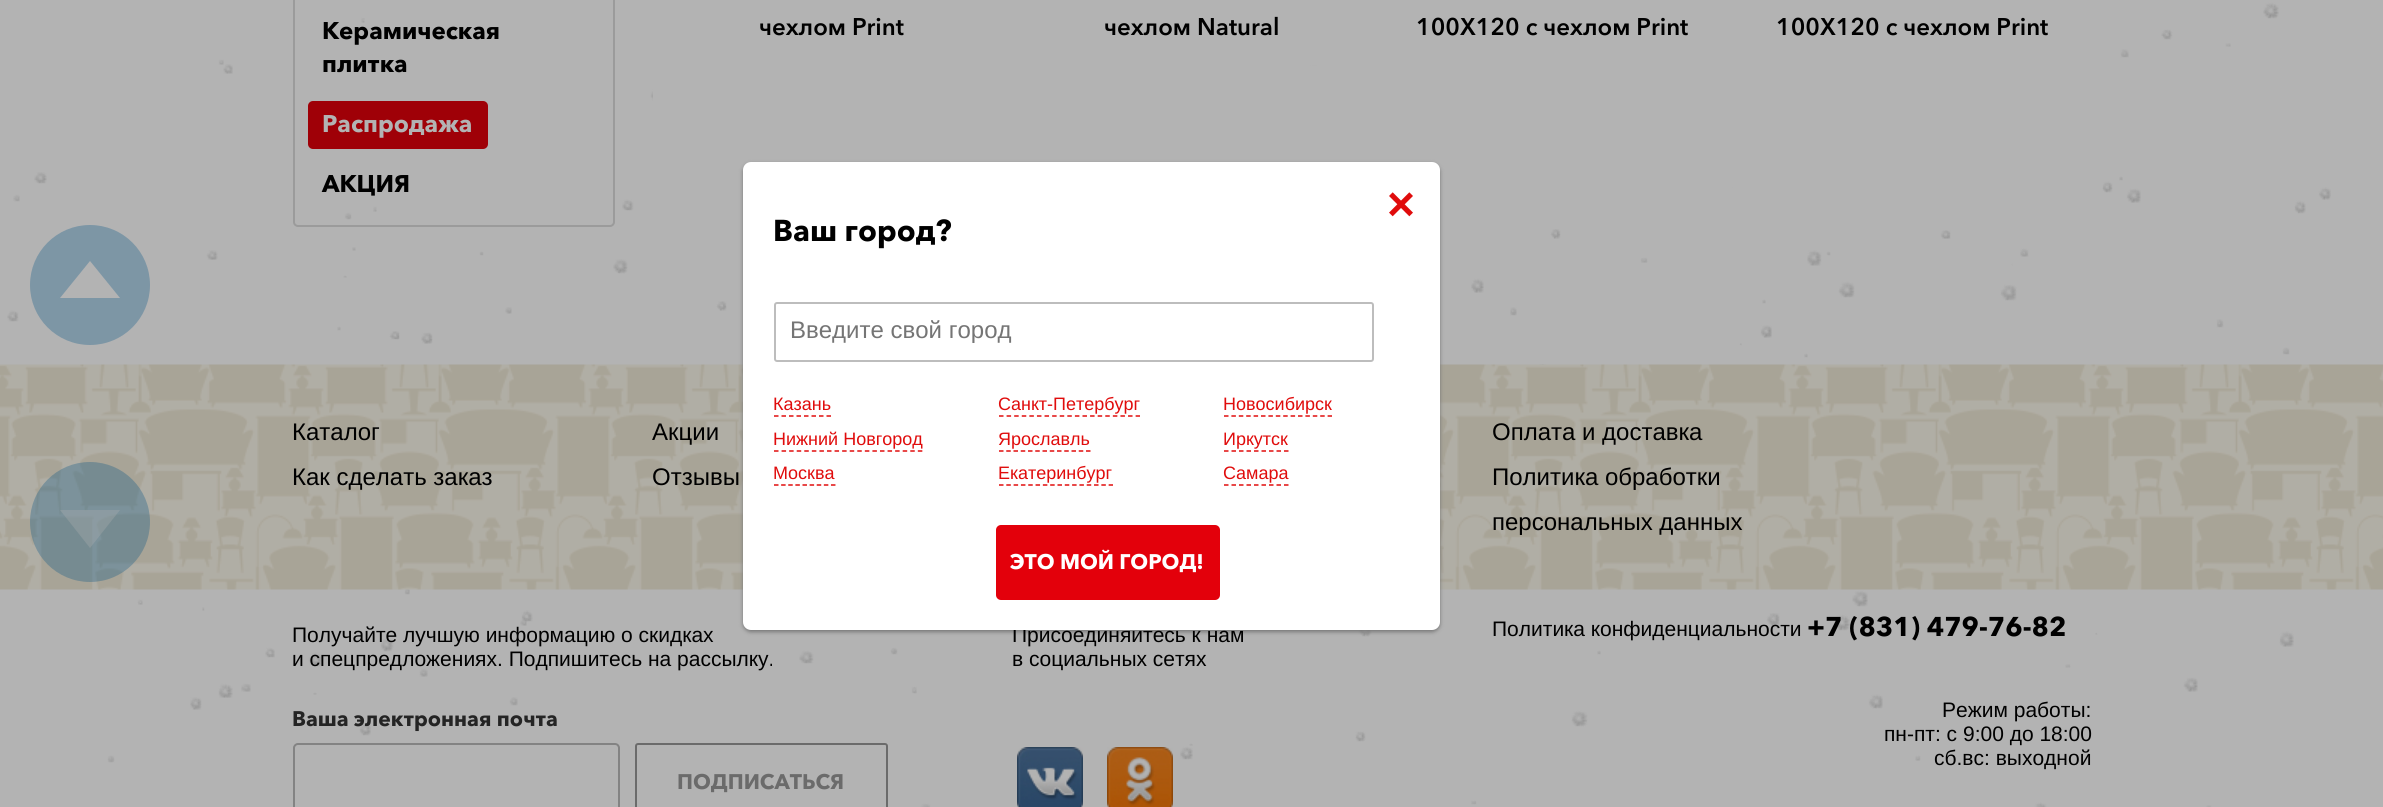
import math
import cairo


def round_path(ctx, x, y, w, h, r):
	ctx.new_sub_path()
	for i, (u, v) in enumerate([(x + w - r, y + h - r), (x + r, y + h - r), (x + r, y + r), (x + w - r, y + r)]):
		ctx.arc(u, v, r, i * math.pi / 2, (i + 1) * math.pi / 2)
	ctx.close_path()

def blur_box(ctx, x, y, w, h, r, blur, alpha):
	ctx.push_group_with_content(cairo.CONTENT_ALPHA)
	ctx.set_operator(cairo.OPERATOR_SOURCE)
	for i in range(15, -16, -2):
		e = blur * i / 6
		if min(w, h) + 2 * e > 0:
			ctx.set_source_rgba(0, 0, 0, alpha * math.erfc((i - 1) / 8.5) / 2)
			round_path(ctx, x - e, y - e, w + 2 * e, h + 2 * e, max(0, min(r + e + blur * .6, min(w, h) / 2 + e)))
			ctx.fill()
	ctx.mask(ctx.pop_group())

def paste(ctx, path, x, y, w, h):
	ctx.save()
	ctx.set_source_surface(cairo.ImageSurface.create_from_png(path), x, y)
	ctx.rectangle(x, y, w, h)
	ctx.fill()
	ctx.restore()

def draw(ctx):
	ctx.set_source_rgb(0.702, 0.702, 0.702)
	ctx.paint()
	paste(ctx, 'media/1.png', 7, 2, 2324, 805)
	ctx.set_source_rgb(0.49, 0.588, 0.647)
	ctx.arc(90, 285, 60, 0, 2 * math.pi)
	ctx.fill()
	ctx.set_source_rgb(0.702, 0.702, 0.702)
	ctx.new_path()
	ctx.move_to(120, 298)
	ctx.line_to(60, 298)
	ctx.line_to(90, 261)
	ctx.close_path()
	ctx.fill()
	round_path(ctx, 294, -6, 320, 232, 4)
	ctx.set_source_rgb(0.608, 0.608, 0.608)
	ctx.stroke()
	ctx.select_font_face('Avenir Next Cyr', cairo.FONT_SLANT_NORMAL, cairo.FONT_WEIGHT_BOLD)
	ctx.set_font_size(24)
	ctx.set_source_rgb(0, 0, 0)
	ctx.move_to(322, 39)
	ctx.show_text('Керамическая')
	ctx.move_to(322, 72)
	ctx.show_text('плитка')
	ctx.set_source_rgb(0.624, 0, 0.031)
	round_path(ctx, 308, 101, 180, 48, 5)
	ctx.fill()
	ctx.set_source_rgb(0.702, 0.702, 0.702)
	ctx.move_to(322, 132)
	ctx.show_text('Распродажа')
	ctx.set_source_rgb(0, 0, 0)
	ctx.move_to(322, 192)
	ctx.show_text('АКЦИЯ')
	ctx.set_source_rgb(0.702, 0.702, 0.702)
	ctx.rectangle(653, 2, 359, 209)
	ctx.fill()
	ctx.select_font_face('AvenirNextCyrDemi', cairo.FONT_SLANT_NORMAL, cairo.FONT_WEIGHT_BOLD)
	ctx.set_source_rgb(0, 0, 0)
	ctx.move_to(759, 35)
	ctx.show_text('чехлом Print')
	ctx.set_source_rgb(0.702, 0.702, 0.702)
	ctx.rectangle(1051, 66, 268, 80)
	ctx.fill()
	ctx.set_source_rgb(0, 0, 0)
	ctx.move_to(1104, 35)
	ctx.show_text('чехлом Natural')
	ctx.set_source_rgb(0.702, 0.702, 0.702)
	ctx.rectangle(1373, 118, 360, 69)
	ctx.fill()
	ctx.set_source_rgb(0, 0, 0)
	ctx.move_to(1416, 35)
	ctx.show_text('100Х120 с чехлом Print')
	ctx.set_source_rgb(0.702, 0.702, 0.702)
	ctx.rectangle(1733, 13, 296, 217)
	ctx.fill()
	ctx.set_source_rgb(0, 0, 0)
	ctx.move_to(1776, 35)
	ctx.show_text('100Х120 с чехлом Print')
	paste(ctx, 'media/3.png', 0, 364, 2383, 226)
	ctx.set_source_rgb(0.467, 0.467, 0.467)
	blur_box(ctx, 743, 164, 697, 468, 8, 2, 1)
	ctx.select_font_face('Liberation Sans')
	ctx.set_font_size(21)
	ctx.set_source_rgb(0, 0, 0)
	ctx.move_to(1012, 642)
	ctx.show_text('Присоединяйтесь к нам')
	ctx.set_source_rgb(1, 1, 1)
	round_path(ctx, 743, 162, 697, 468, 8)
	ctx.fill()
	paste(ctx, 'media/2.png', 1389, 192, 24, 25)
	ctx.select_font_face('Avenir Next Cyr', cairo.FONT_SLANT_NORMAL, cairo.FONT_WEIGHT_BOLD)
	ctx.set_font_size(30)
	ctx.set_source_rgb(0, 0, 0)
	ctx.move_to(773, 241)
	ctx.show_text('Ваш город?')
	round_path(ctx, 775, 303, 598, 58, 2)
	ctx.set_source_rgb(0.741, 0.741, 0.741)
	ctx.stroke()
	ctx.select_font_face('Liberation Sans')
	ctx.set_font_size(24)
	ctx.set_source_rgb(0.459, 0.459, 0.459)
	ctx.move_to(790, 338)
	ctx.show_text('Введите свой город')
	ctx.set_font_size(18)
	ctx.set_source_rgb(0.878, 0.047, 0.047)
	ctx.move_to(773, 410)
	ctx.show_text('Казань')
	ctx.new_path()
	ctx.move_to(774, 416)
	ctx.line_to(831, 416)
	ctx.set_line_width(1.5)
	ctx.set_dash([4.5, 3])
	ctx.stroke()
	ctx.move_to(773, 445)
	ctx.show_text('Нижний Новгород')
	ctx.new_path()
	ctx.move_to(774, 451)
	ctx.line_to(922.5, 451)
	ctx.set_dash([4.5, 3.07])
	ctx.stroke()
	ctx.move_to(773, 479)
	ctx.show_text('Москва')
	ctx.new_path()
	ctx.move_to(774, 485)
	ctx.line_to(835.5, 485)
	ctx.set_dash([4.5, 2.62])
	ctx.stroke()
	ctx.move_to(998, 410)
	ctx.show_text('Санкт-Петербург')
	ctx.new_path()
	ctx.move_to(999, 416)
	ctx.line_to(1140, 416)
	ctx.set_dash([4.5, 3.09])
	ctx.stroke()
	ctx.move_to(998, 445)
	ctx.show_text('Ярославль')
	ctx.new_path()
	ctx.move_to(999, 451)
	ctx.line_to(1090.5, 451)
	ctx.set_dash([4.5, 2.75])
	ctx.stroke()
	ctx.move_to(998, 479)
	ctx.show_text('Екатеринбург')
	ctx.new_path()
	ctx.move_to(999, 485)
	ctx.line_to(1113, 485)
	ctx.set_dash([4.5, 2.81])
	ctx.stroke()
	ctx.move_to(1223, 410)
	ctx.show_text('Новосибирск')
	ctx.new_path()
	ctx.move_to(1224, 416)
	ctx.line_to(1332, 416)
	ctx.set_dash([4.5, 2.9])
	ctx.stroke()
	ctx.move_to(1223, 445)
	ctx.show_text('Иркутск')
	ctx.new_path()
	ctx.move_to(1224, 451)
	ctx.line_to(1288.5, 451)
	ctx.set_dash([4.5, 3])
	ctx.stroke()
	ctx.move_to(1223, 479)
	ctx.show_text('Самара')
	ctx.new_path()
	ctx.move_to(1224, 485)
	ctx.line_to(1288.5, 485)
	ctx.stroke()
	ctx.set_source_rgb(0.89, 0, 0.043)
	round_path(ctx, 996, 525, 224, 75, 5)
	ctx.fill()
	ctx.select_font_face('Avenir Next Cyr', cairo.FONT_SLANT_NORMAL, cairo.FONT_WEIGHT_BOLD)
	ctx.set_font_size(21)
	ctx.set_source_rgb(1, 1, 1)
	ctx.move_to(1010, 569)
	ctx.show_text('ЭТО МОЙ ГОРОД!')
	ctx.set_source_rgba(0.004, 0.325, 0.518, 0.3)
	ctx.new_path()
	ctx.arc(90, 522, 60, 0, 2 * math.pi)
	ctx.fill()
	ctx.set_source_rgba(0.702, 0.702, 0.702, 0.3)
	ctx.new_path()
	ctx.move_to(60, 510)
	ctx.line_to(120, 510)
	ctx.line_to(90, 548)
	ctx.close_path()
	ctx.fill()
	ctx.select_font_face('Liberation Sans')
	ctx.set_font_size(24)
	ctx.set_source_rgb(0, 0, 0)
	for x, y, s in [
		(292, 440, 'Каталог'),
		(652, 440, 'Акции'),
		(1492, 440, 'Оплата и доставка'),
		(292, 485, 'Как сделать заказ'),
		(652, 485, 'Отзывы'),
		(1492, 485, 'Политика обработки'),
		(1492, 530, 'персональных данных'),
	]:
		ctx.move_to(x, y)
		ctx.show_text(s)
	ctx.set_font_size(21)
	ctx.move_to(292, 642)
	ctx.show_text('Получайте лучшую информацию о скидках')
	ctx.move_to(292, 666)
	ctx.show_text('и спецпредложениях. Подпишитесь на рассылку.')
	ctx.select_font_face('Avenir Next Cyr', cairo.FONT_SLANT_NORMAL, cairo.FONT_WEIGHT_BOLD)
	ctx.set_source_rgb(0.141, 0.141, 0.141)
	ctx.move_to(292, 726)
	ctx.show_text('Ваша электронная почта')
	round_path(ctx, 294, 744, 325, 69, 4)
	ctx.set_source_rgb(0.514, 0.514, 0.514)
	ctx.set_line_width(2)
	ctx.set_dash([])
	ctx.stroke()
	round_path(ctx, 636, 744, 251, 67, 2)
	ctx.set_source_rgb(0.42, 0.42, 0.42)
	ctx.stroke()
	ctx.move_to(677, 789)
	ctx.show_text('ПОДПИСАТЬСЯ')
	ctx.select_font_face('Liberation Sans')
	ctx.set_source_rgb(0, 0, 0)
	ctx.move_to(1012, 666)
	ctx.show_text('в социальных сетях')
	paste(ctx, 'media/4.png', 1017, 747, 66, 60)
	paste(ctx, 'media/5.png', 1107, 747, 66, 60)
	ctx.move_to(1492, 636)
	ctx.show_text('Политика конфиденциальности')
	ctx.select_font_face('Avenir Next Cyr', cairo.FONT_SLANT_NORMAL, cairo.FONT_WEIGHT_BOLD)
	ctx.set_font_size(27)
	ctx.move_to(1807, 636)
	ctx.show_text('+7 (831) 479-76-82')
	ctx.select_font_face('Liberation Sans')
	ctx.set_font_size(21)
	for x, y, s in [
		(1942, 717, 'Режим работы:'),
		(1884, 741, 'пн-пт: с 9:00 до 18:00'),
		(1934, 765, 'сб.вс: выходной'),
	]:
		ctx.move_to(x, y)
		ctx.show_text(s)


surface = cairo.ImageSurface(cairo.FORMAT_RGB24, 2383, 807)
ctx = cairo.Context(surface)
options = cairo.FontOptions()
options.set_hint_metrics(cairo.HINT_METRICS_OFF)
options.set_hint_style(cairo.HINT_STYLE_NONE)
ctx.set_font_options(options)
ctx.set_miter_limit(4)
draw(ctx)
surface.write_to_png('image.png')
